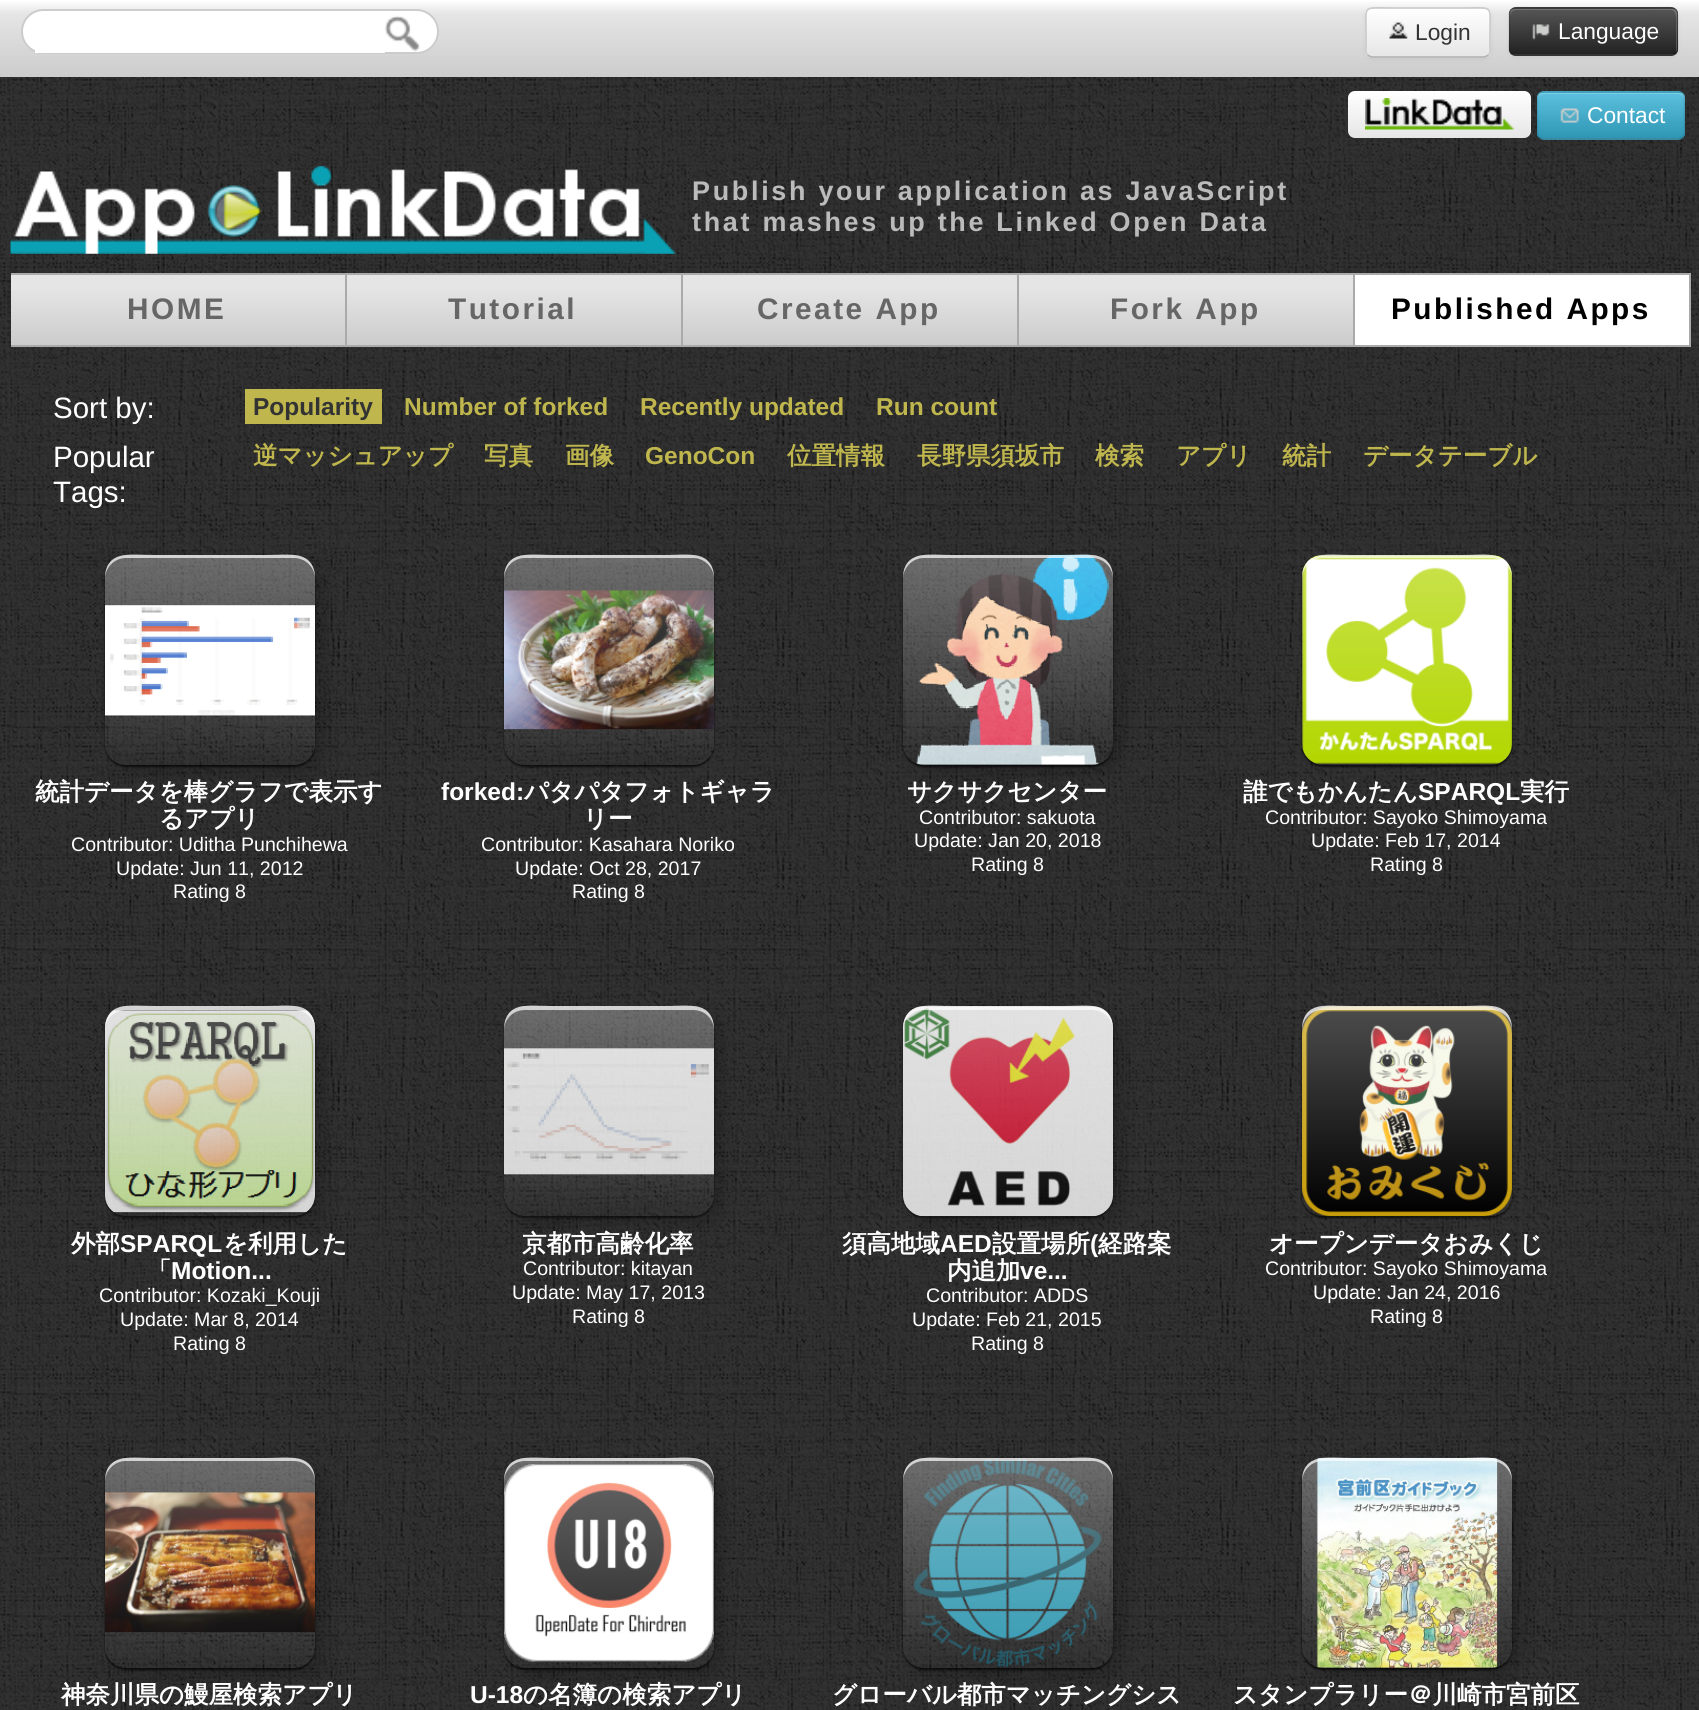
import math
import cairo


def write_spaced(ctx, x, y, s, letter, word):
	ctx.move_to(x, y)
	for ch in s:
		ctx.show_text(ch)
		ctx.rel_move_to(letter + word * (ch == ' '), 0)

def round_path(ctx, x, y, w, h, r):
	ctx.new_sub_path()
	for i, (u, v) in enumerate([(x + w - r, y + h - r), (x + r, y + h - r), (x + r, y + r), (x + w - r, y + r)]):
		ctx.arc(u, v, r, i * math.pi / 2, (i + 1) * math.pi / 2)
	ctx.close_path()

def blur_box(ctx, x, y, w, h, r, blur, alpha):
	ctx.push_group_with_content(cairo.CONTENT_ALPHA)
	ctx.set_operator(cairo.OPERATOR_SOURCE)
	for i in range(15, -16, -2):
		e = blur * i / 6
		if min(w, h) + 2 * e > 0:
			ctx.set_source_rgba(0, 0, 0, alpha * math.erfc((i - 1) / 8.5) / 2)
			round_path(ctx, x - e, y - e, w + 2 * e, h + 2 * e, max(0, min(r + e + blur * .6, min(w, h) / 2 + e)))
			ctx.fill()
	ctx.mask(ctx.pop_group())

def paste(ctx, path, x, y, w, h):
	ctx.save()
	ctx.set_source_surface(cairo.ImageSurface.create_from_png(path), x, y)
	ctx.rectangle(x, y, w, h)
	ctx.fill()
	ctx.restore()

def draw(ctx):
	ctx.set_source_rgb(1, 1, 1)
	ctx.paint()
	paste(ctx, 'media/1.png', 0, 77, 1699, 1633)
	gradient = cairo.LinearGradient(850, 0, 850, 77)
	gradient.add_color_stop_rgba(0, 1, 1, 1, 1)
	gradient.add_color_stop_rgba(0.18, 0.898, 0.898, 0.898, 1)
	gradient.add_color_stop_rgba(1, 0.8, 0.8, 0.8, 1)
	ctx.set_source(gradient)
	ctx.rectangle(0, 1, 1699, 76)
	ctx.fill()
	ctx.set_source_rgb(1, 1, 1)
	round_path(ctx, 22, 10, 416, 43, 21.5)
	ctx.fill_preserve()
	ctx.set_source_rgb(0.8, 0.8, 0.8)
	ctx.stroke()
	ctx.set_source_rgb(1, 1, 1)
	ctx.rectangle(35, 50, 350, 3)
	ctx.fill()
	paste(ctx, 'media/2.png', 385, 15, 35, 37)
	ctx.set_source_rgb(0, 0, 0)
	blur_box(ctx, 1365, 9, 126, 51, 7, 2, 0.05)
	ctx.set_source_rgb(0.961, 0.961, 0.961)
	round_path(ctx, 1365, 7, 126, 51, 7)
	ctx.fill()
	ctx.save()
	round_path(ctx, 1365, 7, 126, 51, 7)
	ctx.clip()
	gradient = cairo.LinearGradient(1428, 9, 1428, 56)
	gradient.add_color_stop_rgba(0, 1, 1, 1, 1)
	gradient.add_color_stop_rgba(1, 0.902, 0.902, 0.902, 1)
	ctx.set_source(gradient)
	ctx.rectangle(1365, 9, 126, 47)
	ctx.fill()
	ctx.restore()
	ctx.new_path()
	ctx.move_to(1488.5, 55)
	ctx.curve_to(1487, 56, 1485.5, 57, 1484, 57)
	ctx.line_to(1372, 57)
	ctx.curve_to(1370.5, 57, 1369, 56, 1367.5, 55)
	ctx.set_source_rgb(0.702, 0.702, 0.702)
	ctx.set_line_width(1.8)
	ctx.stroke()
	ctx.new_path()
	ctx.move_to(1367.5, 55)
	ctx.curve_to(1365, 52.5, 1366, 48, 1366, 44.5)
	ctx.line_to(1366, 32.5)
	ctx.curve_to(1366, 4.5, 1362, 8, 1390.5, 8)
	ctx.line_to(1465.5, 8)
	ctx.curve_to(1494, 8, 1490, 4.5, 1490, 32.5)
	ctx.line_to(1490, 44.5)
	ctx.curve_to(1490, 48, 1491, 52.5, 1488.5, 55)
	ctx.set_source_rgb(0.8, 0.8, 0.8)
	ctx.stroke()
	paste(ctx, 'media/3.png', 1389, 21, 19, 18)
	ctx.select_font_face('Liberation Sans')
	ctx.set_font_size(22.75)
	ctx.set_source_rgb(0.2, 0.2, 0.2)
	ctx.move_to(1415, 40)
	ctx.show_text('Login')
	ctx.set_source_rgb(0, 0, 0)
	blur_box(ctx, 1509, 9, 169, 49, 7, 2, 0.05)
	ctx.set_source_rgb(0.255, 0.255, 0.255)
	round_path(ctx, 1509, 7, 169, 49, 7)
	ctx.fill()
	ctx.save()
	round_path(ctx, 1509, 7, 169, 49, 7)
	ctx.clip()
	gradient = cairo.LinearGradient(1593, 9, 1593, 54)
	gradient.add_color_stop_rgba(0, 0.333, 0.333, 0.333, 1)
	gradient.add_color_stop_rgba(1, 0.133, 0.133, 0.133, 1)
	ctx.set_source(gradient)
	ctx.rectangle(1509, 9, 169, 45)
	ctx.fill()
	ctx.restore()
	ctx.set_source_rgba(1, 1, 1, 0.2)
	ctx.new_path()
	ctx.move_to(1516, 10)
	ctx.line_to(1671, 10)
	ctx.curve_to(1678, 10, 1676, 24, 1676, 28)
	ctx.line_to(1676, 52)
	ctx.curve_to(1677, 51, 1677, 50, 1677, 49)
	ctx.line_to(1677, 14)
	ctx.curve_to(1677, 11, 1675, 9, 1672, 9)
	ctx.line_to(1515, 9)
	ctx.curve_to(1512, 9, 1510, 11, 1510, 14)
	ctx.line_to(1510, 16)
	ctx.curve_to(1510, 13, 1513, 10, 1516, 10)
	ctx.close_path()
	ctx.fill()
	ctx.new_path()
	ctx.move_to(1675.5, 53.5)
	ctx.curve_to(1674.5, 54.5, 1673, 55, 1671, 55)
	ctx.line_to(1515.5, 55)
	ctx.curve_to(1514, 55, 1512.5, 54.5, 1511, 53.5)
	ctx.set_source_rgba(0, 0, 0, 0.25)
	ctx.stroke()
	ctx.new_path()
	ctx.move_to(1511, 53.5)
	ctx.curve_to(1507.5, 50, 1509.5, 41, 1509.5, 37.5)
	ctx.curve_to(1509.5, 2.5, 1504, 8, 1541.5, 8)
	ctx.line_to(1645.5, 8)
	ctx.curve_to(1683, 8, 1677.5, 2.5, 1677.5, 37.5)
	ctx.curve_to(1677.5, 41, 1679, 50, 1675.5, 53.5)
	ctx.set_source_rgba(0, 0, 0, 0.1)
	ctx.stroke()
	paste(ctx, 'media/4.png', 1532, 24, 18, 17)
	ctx.set_source_rgb(1, 1, 1)
	ctx.move_to(1558, 39)
	ctx.show_text('Language')
	gradient = cairo.LinearGradient(1439, 91, 1439, 138)
	gradient.add_color_stop_rgba(0, 1, 1, 1, 1)
	gradient.add_color_stop_rgba(1, 0.902, 0.902, 0.902, 1)
	ctx.set_source(gradient)
	round_path(ctx, 1348, 91, 183, 47, 7)
	ctx.fill()
	ctx.set_source_rgba(1, 1, 1, 0.2)
	ctx.new_path()
	ctx.move_to(1354, 93)
	ctx.line_to(1524, 93)
	ctx.curve_to(1528, 93, 1531, 96, 1531, 100)
	ctx.line_to(1531, 98)
	ctx.curve_to(1531, 94, 1528, 91, 1524, 91)
	ctx.line_to(1355, 91)
	ctx.curve_to(1351, 91, 1348, 94, 1348, 98)
	ctx.line_to(1348, 100)
	ctx.curve_to(1348, 96, 1351, 93, 1354, 93)
	ctx.close_path()
	ctx.fill()
	paste(ctx, 'media/5.png', 1365, 98, 149, 32)
	ctx.set_source_rgb(0.286, 0.686, 0.804)
	round_path(ctx, 1537, 91, 148, 49, 7)
	ctx.fill()
	ctx.save()
	round_path(ctx, 1537, 91, 148, 49, 7)
	ctx.clip()
	gradient = cairo.LinearGradient(1611, 93, 1611, 138)
	gradient.add_color_stop_rgba(0, 0.357, 0.753, 0.871, 1)
	gradient.add_color_stop_rgba(1, 0.184, 0.588, 0.706, 1)
	ctx.set_source(gradient)
	ctx.rectangle(1537, 93, 148, 45)
	ctx.fill()
	ctx.restore()
	ctx.set_source_rgba(1, 1, 1, 0.2)
	ctx.new_path()
	ctx.move_to(1544, 94)
	ctx.line_to(1678, 94)
	ctx.curve_to(1681, 94, 1684, 97, 1684, 100)
	ctx.line_to(1684, 98)
	ctx.curve_to(1684, 95, 1682, 93, 1679, 93)
	ctx.line_to(1543, 93)
	ctx.curve_to(1540, 93, 1538, 95, 1538, 98)
	ctx.line_to(1538, 100)
	ctx.curve_to(1538, 97, 1541, 94, 1544, 94)
	ctx.close_path()
	ctx.fill()
	ctx.new_path()
	ctx.move_to(1682.5, 137.5)
	ctx.curve_to(1681.5, 138.5, 1680, 139, 1678, 139)
	ctx.line_to(1543.5, 139)
	ctx.curve_to(1542, 139, 1540.5, 138.5, 1539, 137.5)
	ctx.set_source_rgba(0, 0, 0, 0.25)
	ctx.stroke()
	ctx.new_path()
	ctx.move_to(1539, 137.5)
	ctx.curve_to(1536.5, 134.5, 1537.5, 130.5, 1537.5, 127)
	ctx.line_to(1537.5, 115.5)
	ctx.curve_to(1537.5, 87, 1534.5, 92, 1566, 92)
	ctx.line_to(1678, 92)
	ctx.curve_to(1685, 92, 1684.5, 99, 1684.5, 104)
	ctx.line_to(1684.5, 121.5)
	ctx.curve_to(1684.5, 125, 1686, 134, 1682.5, 137.5)
	ctx.set_source_rgba(0, 0, 0, 0.1)
	ctx.stroke()
	paste(ctx, 'media/6.png', 1560, 108, 19, 15)
	ctx.set_source_rgb(1, 1, 1)
	ctx.move_to(1587, 123)
	ctx.show_text('Contact')
	paste(ctx, 'media/7.png', 10, 166, 666, 88)
	ctx.select_font_face('Liberation Sans', cairo.FONT_SLANT_NORMAL, cairo.FONT_WEIGHT_BOLD)
	ctx.set_font_size(26.95)
	ctx.set_source_rgb(0.733, 0.733, 0.733)
	write_spaced(ctx, 692, 200, 'Publish your application as JavaScript', 2.7, 0)
	write_spaced(ctx, 692, 231, 'that mashes up the Linked Open Data', 2.7, 0)
	gradient = cairo.LinearGradient(178, 275, 178, 345)
	gradient.add_color_stop_rgba(0.18, 0.898, 0.898, 0.898, 1)
	gradient.add_color_stop_rgba(1, 0.8, 0.8, 0.8, 1)
	ctx.set_source(gradient)
	ctx.rectangle(11, 275, 334, 70)
	ctx.fill()
	ctx.set_source_rgb(0.667, 0.667, 0.667)
	ctx.rectangle(11, 273, 1680, 2)
	ctx.rectangle(345, 273, 2, 74)
	ctx.rectangle(11, 345, 336, 2)
	ctx.fill()
	ctx.set_font_size(29.75)
	ctx.set_source_rgb(0.4, 0.4, 0.4)
	write_spaced(ctx, 127, 319, 'HOME', 2.5, 0)
	gradient = cairo.LinearGradient(514, 275, 514, 345)
	gradient.add_color_stop_rgba(0.18, 0.898, 0.898, 0.898, 1)
	gradient.add_color_stop_rgba(1, 0.8, 0.8, 0.8, 1)
	ctx.set_source(gradient)
	ctx.rectangle(347, 275, 334, 70)
	ctx.fill()
	ctx.set_source_rgb(0.667, 0.667, 0.667)
	ctx.rectangle(681, 273, 2, 74)
	ctx.fill()
	ctx.rectangle(347, 345, 336, 2)
	ctx.fill()
	ctx.set_source_rgb(0.4, 0.4, 0.4)
	write_spaced(ctx, 448, 319, 'Tutorial', 2.5, 0)
	gradient = cairo.LinearGradient(850, 275, 850, 345)
	gradient.add_color_stop_rgba(0.18, 0.898, 0.898, 0.898, 1)
	gradient.add_color_stop_rgba(1, 0.8, 0.8, 0.8, 1)
	ctx.set_source(gradient)
	ctx.rectangle(683, 275, 334, 70)
	ctx.fill()
	ctx.set_source_rgb(0.667, 0.667, 0.667)
	ctx.rectangle(1017, 273, 2, 74)
	ctx.fill()
	ctx.rectangle(683, 345, 336, 2)
	ctx.fill()
	ctx.set_source_rgb(0.4, 0.4, 0.4)
	write_spaced(ctx, 757, 319, 'Create App', 2.5, 0)
	gradient = cairo.LinearGradient(1186, 275, 1186, 345)
	gradient.add_color_stop_rgba(0.18, 0.898, 0.898, 0.898, 1)
	gradient.add_color_stop_rgba(1, 0.8, 0.8, 0.8, 1)
	ctx.set_source(gradient)
	ctx.rectangle(1019, 275, 334, 70)
	ctx.fill()
	ctx.set_source_rgb(0.667, 0.667, 0.667)
	ctx.rectangle(1353, 273, 2, 74)
	ctx.fill()
	ctx.rectangle(1019, 345, 336, 2)
	ctx.fill()
	ctx.set_source_rgb(0.4, 0.4, 0.4)
	write_spaced(ctx, 1110, 319, 'Fork App', 2.5, 0)
	ctx.set_source_rgb(1, 1, 1)
	ctx.rectangle(1355, 275, 334, 70)
	ctx.fill()
	ctx.set_source_rgb(0.667, 0.667, 0.667)
	ctx.rectangle(1689, 273, 2, 74)
	ctx.rectangle(1355, 345, 336, 2)
	ctx.fill()
	ctx.set_source_rgb(0, 0, 0)
	write_spaced(ctx, 1391, 319, 'Published Apps', 2.5, 0)
	ctx.select_font_face('Liberation Sans')
	ctx.set_font_size(29.5)
	ctx.set_source_rgb(1, 1, 1)
	ctx.move_to(53, 418)
	ctx.show_text('Sort by:')
	ctx.set_source_rgb(0.749, 0.714, 0.302)
	ctx.rectangle(245, 389, 137, 35)
	ctx.fill()
	ctx.select_font_face('Liberation Sans', cairo.FONT_SLANT_NORMAL, cairo.FONT_WEIGHT_BOLD)
	ctx.set_font_size(24.5)
	ctx.set_source_rgb(0.2, 0.2, 0.2)
	ctx.move_to(253, 415)
	ctx.show_text('Popularity')
	ctx.set_source_rgb(0.749, 0.714, 0.302)
	for x, y, s in [
		(404, 415, 'Number of forked'),
		(640, 415, 'Recently updated'),
		(876, 415, 'Run count'),
	]:
		ctx.move_to(x, y)
		ctx.show_text(s)
	ctx.select_font_face('Liberation Sans')
	ctx.set_font_size(29.5)
	ctx.set_source_rgb(1, 1, 1)
	ctx.move_to(53, 467)
	ctx.show_text('Popular')
	ctx.move_to(53, 502)
	ctx.show_text('Tags:')
	ctx.select_font_face('WenQuanYi Zen Hei', cairo.FONT_SLANT_NORMAL, cairo.FONT_WEIGHT_BOLD)
	ctx.set_font_size(24.5)
	ctx.set_source_rgb(0.749, 0.714, 0.302)
	for x, y, s in [
		(253, 464, '逆マッシュアップ'),
		(484, 464, '写真'),
		(565, 464, '画像'),
	]:
		ctx.move_to(x, y)
		ctx.show_text(s)
	ctx.select_font_face('Liberation Sans', cairo.FONT_SLANT_NORMAL, cairo.FONT_WEIGHT_BOLD)
	ctx.move_to(645, 464)
	ctx.show_text('GenoCon')
	ctx.select_font_face('WenQuanYi Zen Hei', cairo.FONT_SLANT_NORMAL, cairo.FONT_WEIGHT_BOLD)
	for x, y, s in [
		(787, 464, '位置情報'),
		(917, 464, '長野県須坂市'),
		(1095, 464, '検索'),
		(1176, 464, 'アプリ'),
		(1282, 464, '統計'),
		(1363, 464, 'データテーブル'),
	]:
		ctx.move_to(x, y)
		ctx.show_text(s)
	ctx.save()
	ctx.set_fill_rule(cairo.FILL_RULE_EVEN_ODD)
	ctx.new_path()
	ctx.move_to(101, 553)
	ctx.line_to(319, 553)
	ctx.line_to(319, 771)
	ctx.line_to(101, 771)
	ctx.close_path()
	ctx.move_to(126, 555)
	ctx.line_to(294, 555)
	ctx.curve_to(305.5, 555, 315, 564.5, 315, 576)
	ctx.line_to(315, 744)
	ctx.curve_to(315, 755.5, 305.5, 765, 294, 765)
	ctx.line_to(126, 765)
	ctx.curve_to(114.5, 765, 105, 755.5, 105, 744)
	ctx.line_to(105, 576)
	ctx.curve_to(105, 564.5, 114.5, 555, 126, 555)
	ctx.close_path()
	ctx.clip()
	ctx.set_source_rgb(0, 0, 0)
	blur_box(ctx, 105, 557, 210, 210, 21, 1, 0.7)
	ctx.restore()
	paste(ctx, 'media/8.png', 105, 605, 210, 111)
	gradient = cairo.LinearGradient(105, 555, 105, 765)
	gradient.add_color_stop_rgba(0, 1, 1, 1, 0.3)
	gradient.add_color_stop_rgba(1, 1, 1, 1, 0)
	ctx.set_source(gradient)
	round_path(ctx, 105, 555, 210, 210, 21)
	ctx.fill()
	ctx.set_source_rgba(1, 1, 1, 0.7)
	ctx.new_path()
	ctx.move_to(126, 558)
	ctx.line_to(294, 558)
	ctx.curve_to(306, 558, 315, 568, 315, 579)
	ctx.curve_to(315, 549, 288, 555, 266, 555)
	ctx.line_to(154, 555)
	ctx.curve_to(132, 555, 105, 549, 105, 579)
	ctx.curve_to(105, 568, 114, 558, 126, 558)
	ctx.close_path()
	ctx.fill()
	ctx.save()
	ctx.set_fill_rule(cairo.FILL_RULE_EVEN_ODD)
	ctx.new_path()
	ctx.move_to(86, 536)
	ctx.line_to(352, 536)
	ctx.line_to(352, 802)
	ctx.line_to(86, 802)
	ctx.close_path()
	ctx.move_to(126, 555)
	ctx.line_to(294, 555)
	ctx.curve_to(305.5, 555, 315, 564.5, 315, 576)
	ctx.line_to(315, 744)
	ctx.curve_to(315, 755.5, 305.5, 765, 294, 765)
	ctx.line_to(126, 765)
	ctx.curve_to(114.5, 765, 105, 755.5, 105, 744)
	ctx.line_to(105, 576)
	ctx.curve_to(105, 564.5, 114.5, 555, 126, 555)
	ctx.close_path()
	ctx.clip()
	ctx.set_source_rgb(0, 0, 0)
	blur_box(ctx, 114, 564, 210, 210, 21, 9, 0.2)
	ctx.restore()
	ctx.set_source_rgb(1, 1, 1)
	ctx.move_to(35, 800)
	ctx.show_text('統計データを棒グラフで表示す')
	ctx.move_to(159, 827)
	ctx.show_text('るアプリ')
	ctx.select_font_face('Liberation Sans')
	ctx.set_font_size(19.6)
	for x, y, s in [
		(71, 851, 'Contributor: Uditha Punchihewa'),
		(116, 875, 'Update: Jun 11, 2012'),
		(173, 898, 'Rating 8'),
	]:
		ctx.move_to(x, y)
		ctx.show_text(s)
	ctx.save()
	ctx.set_fill_rule(cairo.FILL_RULE_EVEN_ODD)
	ctx.new_path()
	ctx.move_to(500, 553)
	ctx.line_to(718, 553)
	ctx.line_to(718, 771)
	ctx.line_to(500, 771)
	ctx.close_path()
	ctx.move_to(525, 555)
	ctx.line_to(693, 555)
	ctx.curve_to(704.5, 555, 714, 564.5, 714, 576)
	ctx.line_to(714, 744)
	ctx.curve_to(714, 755.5, 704.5, 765, 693, 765)
	ctx.line_to(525, 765)
	ctx.curve_to(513.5, 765, 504, 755.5, 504, 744)
	ctx.line_to(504, 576)
	ctx.curve_to(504, 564.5, 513.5, 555, 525, 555)
	ctx.close_path()
	ctx.clip()
	ctx.set_source_rgb(0, 0, 0)
	blur_box(ctx, 504, 557, 210, 210, 21, 1, 0.7)
	ctx.restore()
	paste(ctx, 'media/9.png', 504, 590, 210, 140)
	gradient = cairo.LinearGradient(504, 555, 504, 765)
	gradient.add_color_stop_rgba(0, 1, 1, 1, 0.3)
	gradient.add_color_stop_rgba(1, 1, 1, 1, 0)
	ctx.set_source(gradient)
	round_path(ctx, 504, 555, 210, 210, 21)
	ctx.fill()
	ctx.set_source_rgba(1, 1, 1, 0.7)
	ctx.new_path()
	ctx.move_to(525, 558)
	ctx.line_to(693, 558)
	ctx.curve_to(705, 558, 714, 568, 714, 579)
	ctx.curve_to(714, 549, 687, 555, 665, 555)
	ctx.line_to(553, 555)
	ctx.curve_to(531, 555, 504, 549, 504, 579)
	ctx.curve_to(504, 568, 513, 558, 525, 558)
	ctx.close_path()
	ctx.fill()
	ctx.select_font_face('Liberation Sans', cairo.FONT_SLANT_NORMAL, cairo.FONT_WEIGHT_BOLD)
	ctx.set_font_size(24.5)
	ctx.set_source_rgb(1, 1, 1)
	ctx.move_to(441, 800)
	ctx.show_text('forked:')
	ctx.select_font_face('WenQuanYi Zen Hei', cairo.FONT_SLANT_NORMAL, cairo.FONT_WEIGHT_BOLD)
	ctx.move_to(524, 800)
	ctx.show_text('パタパタフォトギャラ')
	ctx.move_to(583, 827)
	ctx.show_text('リー')
	ctx.select_font_face('Liberation Sans')
	ctx.set_font_size(19.6)
	for x, y, s in [
		(481, 851, 'Contributor: Kasahara Noriko'),
		(515, 875, 'Update: Oct 28, 2017'),
		(572, 898, 'Rating 8'),
	]:
		ctx.move_to(x, y)
		ctx.show_text(s)
	ctx.save()
	ctx.set_fill_rule(cairo.FILL_RULE_EVEN_ODD)
	ctx.new_path()
	ctx.move_to(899, 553)
	ctx.line_to(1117, 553)
	ctx.line_to(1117, 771)
	ctx.line_to(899, 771)
	ctx.close_path()
	ctx.move_to(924, 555)
	ctx.line_to(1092, 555)
	ctx.curve_to(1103.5, 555, 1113, 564.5, 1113, 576)
	ctx.line_to(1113, 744)
	ctx.curve_to(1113, 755.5, 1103.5, 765, 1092, 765)
	ctx.line_to(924, 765)
	ctx.curve_to(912.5, 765, 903, 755.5, 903, 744)
	ctx.line_to(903, 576)
	ctx.curve_to(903, 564.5, 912.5, 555, 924, 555)
	ctx.close_path()
	ctx.clip()
	ctx.set_source_rgb(0, 0, 0)
	blur_box(ctx, 903, 557, 210, 210, 21, 1, 0.7)
	ctx.restore()
	paste(ctx, 'media/10.png', 916, 554, 193, 211)
	gradient = cairo.LinearGradient(903, 555, 903, 765)
	gradient.add_color_stop_rgba(0, 1, 1, 1, 0.3)
	gradient.add_color_stop_rgba(1, 1, 1, 1, 0)
	ctx.set_source(gradient)
	round_path(ctx, 903, 555, 210, 210, 21)
	ctx.fill()
	ctx.set_source_rgba(1, 1, 1, 0.7)
	ctx.new_path()
	ctx.move_to(924, 558)
	ctx.line_to(1092, 558)
	ctx.curve_to(1104, 558, 1113, 568, 1113, 579)
	ctx.curve_to(1113, 549, 1086, 555, 1064, 555)
	ctx.line_to(952, 555)
	ctx.curve_to(930, 555, 903, 549, 903, 579)
	ctx.curve_to(903, 568, 912, 558, 924, 558)
	ctx.close_path()
	ctx.fill()
	ctx.save()
	ctx.set_fill_rule(cairo.FILL_RULE_EVEN_ODD)
	ctx.new_path()
	ctx.move_to(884, 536)
	ctx.line_to(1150, 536)
	ctx.line_to(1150, 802)
	ctx.line_to(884, 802)
	ctx.close_path()
	ctx.move_to(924, 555)
	ctx.line_to(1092, 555)
	ctx.curve_to(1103.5, 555, 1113, 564.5, 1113, 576)
	ctx.line_to(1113, 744)
	ctx.curve_to(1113, 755.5, 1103.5, 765, 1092, 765)
	ctx.line_to(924, 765)
	ctx.curve_to(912.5, 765, 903, 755.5, 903, 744)
	ctx.line_to(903, 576)
	ctx.curve_to(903, 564.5, 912.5, 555, 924, 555)
	ctx.close_path()
	ctx.clip()
	ctx.set_source_rgb(0, 0, 0)
	blur_box(ctx, 912, 564, 210, 210, 21, 9, 0.2)
	ctx.restore()
	ctx.select_font_face('WenQuanYi Zen Hei', cairo.FONT_SLANT_NORMAL, cairo.FONT_WEIGHT_BOLD)
	ctx.set_font_size(24.5)
	ctx.set_source_rgb(1, 1, 1)
	ctx.move_to(907, 800)
	ctx.show_text('サクサクセンター')
	ctx.select_font_face('Liberation Sans')
	ctx.set_font_size(19.6)
	for x, y, s in [
		(919, 824, 'Contributor: sakuota'),
		(914, 847, 'Update: Jan 20, 2018'),
		(971, 871, 'Rating 8'),
	]:
		ctx.move_to(x, y)
		ctx.show_text(s)
	ctx.save()
	ctx.set_fill_rule(cairo.FILL_RULE_EVEN_ODD)
	ctx.new_path()
	ctx.move_to(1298, 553)
	ctx.line_to(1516, 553)
	ctx.line_to(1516, 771)
	ctx.line_to(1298, 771)
	ctx.close_path()
	ctx.move_to(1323, 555)
	ctx.line_to(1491, 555)
	ctx.curve_to(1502.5, 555, 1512, 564.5, 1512, 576)
	ctx.line_to(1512, 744)
	ctx.curve_to(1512, 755.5, 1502.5, 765, 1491, 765)
	ctx.line_to(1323, 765)
	ctx.curve_to(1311.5, 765, 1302, 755.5, 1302, 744)
	ctx.line_to(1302, 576)
	ctx.curve_to(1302, 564.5, 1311.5, 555, 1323, 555)
	ctx.close_path()
	ctx.clip()
	ctx.set_source_rgb(0, 0, 0)
	blur_box(ctx, 1302, 557, 210, 210, 21, 1, 0.7)
	ctx.restore()
	paste(ctx, 'media/11.png', 1302, 554, 210, 210)
	gradient = cairo.LinearGradient(1302, 555, 1302, 765)
	gradient.add_color_stop_rgba(0, 1, 1, 1, 0.3)
	gradient.add_color_stop_rgba(1, 1, 1, 1, 0)
	ctx.set_source(gradient)
	round_path(ctx, 1302, 555, 210, 210, 21)
	ctx.fill()
	ctx.set_source_rgba(1, 1, 1, 0.7)
	ctx.new_path()
	ctx.move_to(1323, 558)
	ctx.line_to(1491, 558)
	ctx.curve_to(1503, 558, 1512, 568, 1512, 579)
	ctx.curve_to(1512, 549, 1485, 555, 1463, 555)
	ctx.line_to(1351, 555)
	ctx.curve_to(1329, 555, 1302, 549, 1302, 579)
	ctx.curve_to(1302, 568, 1311, 558, 1323, 558)
	ctx.close_path()
	ctx.fill()
	ctx.select_font_face('WenQuanYi Zen Hei', cairo.FONT_SLANT_NORMAL, cairo.FONT_WEIGHT_BOLD)
	ctx.set_font_size(24.5)
	ctx.set_source_rgb(1, 1, 1)
	ctx.move_to(1243, 800)
	ctx.show_text('誰でもかんたん')
	ctx.select_font_face('Liberation Sans', cairo.FONT_SLANT_NORMAL, cairo.FONT_WEIGHT_BOLD)
	ctx.move_to(1418, 800)
	ctx.show_text('SPARQL')
	ctx.select_font_face('WenQuanYi Zen Hei', cairo.FONT_SLANT_NORMAL, cairo.FONT_WEIGHT_BOLD)
	ctx.move_to(1520, 800)
	ctx.show_text('実行')
	ctx.select_font_face('Liberation Sans')
	ctx.set_font_size(19.6)
	for x, y, s in [
		(1265, 824, 'Contributor: Sayoko Shimoyama'),
		(1311, 847, 'Update: Feb 17, 2014'),
		(1370, 871, 'Rating 8'),
	]:
		ctx.move_to(x, y)
		ctx.show_text(s)
	ctx.save()
	ctx.set_fill_rule(cairo.FILL_RULE_EVEN_ODD)
	ctx.new_path()
	ctx.move_to(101, 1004)
	ctx.line_to(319, 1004)
	ctx.line_to(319, 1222)
	ctx.line_to(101, 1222)
	ctx.close_path()
	ctx.move_to(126, 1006)
	ctx.line_to(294, 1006)
	ctx.curve_to(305.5, 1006, 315, 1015.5, 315, 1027)
	ctx.line_to(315, 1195)
	ctx.curve_to(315, 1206.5, 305.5, 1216, 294, 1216)
	ctx.line_to(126, 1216)
	ctx.curve_to(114.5, 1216, 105, 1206.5, 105, 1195)
	ctx.line_to(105, 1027)
	ctx.curve_to(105, 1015.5, 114.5, 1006, 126, 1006)
	ctx.close_path()
	ctx.clip()
	ctx.set_source_rgb(0, 0, 0)
	blur_box(ctx, 105, 1008, 210, 210, 21, 1, 0.56)
	ctx.restore()
	paste(ctx, 'media/12.png', 105, 1010, 210, 203)
	gradient = cairo.LinearGradient(105, 1006, 105, 1216)
	gradient.add_color_stop_rgba(0, 1, 1, 1, 0.3)
	gradient.add_color_stop_rgba(1, 1, 1, 1, 0)
	ctx.set_source(gradient)
	round_path(ctx, 105, 1006, 210, 210, 21)
	ctx.fill()
	ctx.set_source_rgba(1, 1, 1, 0.7)
	ctx.new_path()
	ctx.move_to(126, 1010)
	ctx.line_to(294, 1010)
	ctx.curve_to(306, 1010, 315, 1019, 315, 1031)
	ctx.curve_to(315, 1000, 290, 1006, 266, 1006)
	ctx.line_to(154, 1006)
	ctx.curve_to(130, 1006, 105, 1000, 105, 1031)
	ctx.curve_to(105, 1019, 114, 1010, 126, 1010)
	ctx.close_path()
	ctx.fill()
	ctx.save()
	ctx.set_fill_rule(cairo.FILL_RULE_EVEN_ODD)
	ctx.new_path()
	ctx.move_to(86, 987)
	ctx.line_to(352, 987)
	ctx.line_to(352, 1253)
	ctx.line_to(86, 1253)
	ctx.close_path()
	ctx.move_to(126, 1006)
	ctx.line_to(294, 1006)
	ctx.curve_to(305.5, 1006, 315, 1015.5, 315, 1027)
	ctx.line_to(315, 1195)
	ctx.curve_to(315, 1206.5, 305.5, 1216, 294, 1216)
	ctx.line_to(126, 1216)
	ctx.curve_to(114.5, 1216, 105, 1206.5, 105, 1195)
	ctx.line_to(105, 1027)
	ctx.curve_to(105, 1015.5, 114.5, 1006, 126, 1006)
	ctx.close_path()
	ctx.clip()
	ctx.set_source_rgb(0, 0, 0)
	blur_box(ctx, 114, 1015, 210, 210, 21, 9, 0.2)
	ctx.restore()
	ctx.select_font_face('WenQuanYi Zen Hei', cairo.FONT_SLANT_NORMAL, cairo.FONT_WEIGHT_BOLD)
	ctx.set_font_size(24.5)
	ctx.set_source_rgb(1, 1, 1)
	ctx.move_to(71, 1252)
	ctx.show_text('外部')
	ctx.select_font_face('Liberation Sans', cairo.FONT_SLANT_NORMAL, cairo.FONT_WEIGHT_BOLD)
	ctx.move_to(120, 1252)
	ctx.show_text('SPARQL')
	ctx.select_font_face('WenQuanYi Zen Hei', cairo.FONT_SLANT_NORMAL, cairo.FONT_WEIGHT_BOLD)
	ctx.move_to(223, 1252)
	ctx.show_text('を利用した')
	ctx.move_to(147, 1279)
	ctx.show_text('「')
	ctx.select_font_face('Liberation Sans', cairo.FONT_SLANT_NORMAL, cairo.FONT_WEIGHT_BOLD)
	ctx.move_to(171, 1279)
	ctx.show_text('Motion...')
	ctx.select_font_face('Liberation Sans')
	ctx.set_font_size(19.6)
	for x, y, s in [
		(99, 1302, 'Contributor: Kozaki_Kouji'),
		(120, 1326, 'Update: Mar 8, 2014'),
		(173, 1350, 'Rating 8'),
	]:
		ctx.move_to(x, y)
		ctx.show_text(s)
	ctx.save()
	ctx.set_fill_rule(cairo.FILL_RULE_EVEN_ODD)
	ctx.new_path()
	ctx.move_to(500, 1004)
	ctx.line_to(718, 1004)
	ctx.line_to(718, 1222)
	ctx.line_to(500, 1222)
	ctx.close_path()
	ctx.move_to(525, 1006)
	ctx.line_to(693, 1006)
	ctx.curve_to(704.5, 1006, 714, 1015.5, 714, 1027)
	ctx.line_to(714, 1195)
	ctx.curve_to(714, 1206.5, 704.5, 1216, 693, 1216)
	ctx.line_to(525, 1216)
	ctx.curve_to(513.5, 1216, 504, 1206.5, 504, 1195)
	ctx.line_to(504, 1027)
	ctx.curve_to(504, 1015.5, 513.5, 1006, 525, 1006)
	ctx.close_path()
	ctx.clip()
	ctx.set_source_rgb(0, 0, 0)
	blur_box(ctx, 504, 1008, 210, 210, 21, 1, 0.56)
	ctx.restore()
	paste(ctx, 'media/13.png', 504, 1048, 210, 127)
	gradient = cairo.LinearGradient(504, 1006, 504, 1216)
	gradient.add_color_stop_rgba(0, 1, 1, 1, 0.3)
	gradient.add_color_stop_rgba(1, 1, 1, 1, 0)
	ctx.set_source(gradient)
	round_path(ctx, 504, 1006, 210, 210, 21)
	ctx.fill()
	ctx.set_source_rgba(1, 1, 1, 0.7)
	ctx.new_path()
	ctx.move_to(525, 1010)
	ctx.line_to(693, 1010)
	ctx.curve_to(705, 1010, 714, 1019, 714, 1031)
	ctx.curve_to(714, 1000, 689, 1006, 665, 1006)
	ctx.line_to(553, 1006)
	ctx.curve_to(529, 1006, 504, 1000, 504, 1031)
	ctx.curve_to(504, 1019, 513, 1010, 525, 1010)
	ctx.close_path()
	ctx.fill()
	ctx.save()
	ctx.set_fill_rule(cairo.FILL_RULE_EVEN_ODD)
	ctx.new_path()
	ctx.move_to(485, 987)
	ctx.line_to(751, 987)
	ctx.line_to(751, 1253)
	ctx.line_to(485, 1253)
	ctx.close_path()
	ctx.move_to(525, 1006)
	ctx.line_to(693, 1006)
	ctx.curve_to(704.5, 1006, 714, 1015.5, 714, 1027)
	ctx.line_to(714, 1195)
	ctx.curve_to(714, 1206.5, 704.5, 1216, 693, 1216)
	ctx.line_to(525, 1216)
	ctx.curve_to(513.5, 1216, 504, 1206.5, 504, 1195)
	ctx.line_to(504, 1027)
	ctx.curve_to(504, 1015.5, 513.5, 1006, 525, 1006)
	ctx.close_path()
	ctx.clip()
	ctx.set_source_rgb(0, 0, 0)
	blur_box(ctx, 513, 1015, 210, 210, 21, 9, 0.2)
	ctx.restore()
	ctx.select_font_face('WenQuanYi Zen Hei', cairo.FONT_SLANT_NORMAL, cairo.FONT_WEIGHT_BOLD)
	ctx.set_font_size(24.5)
	ctx.set_source_rgb(1, 1, 1)
	ctx.move_to(522, 1252)
	ctx.show_text('京都市高齢化率')
	ctx.select_font_face('Liberation Sans')
	ctx.set_font_size(19.6)
	for x, y, s in [
		(523, 1275, 'Contributor: kitayan'),
		(512, 1299, 'Update: May 17, 2013'),
		(572, 1323, 'Rating 8'),
	]:
		ctx.move_to(x, y)
		ctx.show_text(s)
	ctx.save()
	ctx.set_fill_rule(cairo.FILL_RULE_EVEN_ODD)
	ctx.new_path()
	ctx.move_to(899, 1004)
	ctx.line_to(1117, 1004)
	ctx.line_to(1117, 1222)
	ctx.line_to(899, 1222)
	ctx.close_path()
	ctx.move_to(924, 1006)
	ctx.line_to(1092, 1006)
	ctx.curve_to(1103.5, 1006, 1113, 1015.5, 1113, 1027)
	ctx.line_to(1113, 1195)
	ctx.curve_to(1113, 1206.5, 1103.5, 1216, 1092, 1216)
	ctx.line_to(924, 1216)
	ctx.curve_to(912.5, 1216, 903, 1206.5, 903, 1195)
	ctx.line_to(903, 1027)
	ctx.curve_to(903, 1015.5, 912.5, 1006, 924, 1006)
	ctx.close_path()
	ctx.clip()
	ctx.set_source_rgb(0, 0, 0)
	blur_box(ctx, 903, 1008, 210, 210, 21, 1, 0.56)
	ctx.restore()
	paste(ctx, 'media/14.png', 903, 1006, 210, 211)
	gradient = cairo.LinearGradient(903, 1006, 903, 1216)
	gradient.add_color_stop_rgba(0, 1, 1, 1, 0.3)
	gradient.add_color_stop_rgba(1, 1, 1, 1, 0)
	ctx.set_source(gradient)
	round_path(ctx, 903, 1006, 210, 210, 21)
	ctx.fill()
	ctx.set_source_rgba(1, 1, 1, 0.7)
	ctx.new_path()
	ctx.move_to(924, 1010)
	ctx.line_to(1092, 1010)
	ctx.curve_to(1104, 1010, 1113, 1019, 1113, 1031)
	ctx.curve_to(1113, 1000, 1088, 1006, 1064, 1006)
	ctx.line_to(952, 1006)
	ctx.curve_to(928, 1006, 903, 1000, 903, 1031)
	ctx.curve_to(903, 1019, 912, 1010, 924, 1010)
	ctx.close_path()
	ctx.fill()
	ctx.save()
	ctx.set_fill_rule(cairo.FILL_RULE_EVEN_ODD)
	ctx.new_path()
	ctx.move_to(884, 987)
	ctx.line_to(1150, 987)
	ctx.line_to(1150, 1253)
	ctx.line_to(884, 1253)
	ctx.close_path()
	ctx.move_to(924, 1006)
	ctx.line_to(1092, 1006)
	ctx.curve_to(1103.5, 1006, 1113, 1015.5, 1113, 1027)
	ctx.line_to(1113, 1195)
	ctx.curve_to(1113, 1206.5, 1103.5, 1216, 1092, 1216)
	ctx.line_to(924, 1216)
	ctx.curve_to(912.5, 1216, 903, 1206.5, 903, 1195)
	ctx.line_to(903, 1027)
	ctx.curve_to(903, 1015.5, 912.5, 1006, 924, 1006)
	ctx.close_path()
	ctx.clip()
	ctx.set_source_rgb(0, 0, 0)
	blur_box(ctx, 912, 1015, 210, 210, 21, 9, 0.2)
	ctx.restore()
	ctx.select_font_face('WenQuanYi Zen Hei', cairo.FONT_SLANT_NORMAL, cairo.FONT_WEIGHT_BOLD)
	ctx.set_font_size(24.5)
	ctx.set_source_rgb(1, 1, 1)
	ctx.move_to(842, 1252)
	ctx.show_text('須高地域')
	ctx.select_font_face('Liberation Sans', cairo.FONT_SLANT_NORMAL, cairo.FONT_WEIGHT_BOLD)
	ctx.move_to(940, 1252)
	ctx.show_text('AED')
	ctx.select_font_face('WenQuanYi Zen Hei', cairo.FONT_SLANT_NORMAL, cairo.FONT_WEIGHT_BOLD)
	ctx.move_to(992, 1252)
	ctx.show_text('設置場所')
	ctx.select_font_face('Liberation Sans', cairo.FONT_SLANT_NORMAL, cairo.FONT_WEIGHT_BOLD)
	ctx.move_to(1090, 1252)
	ctx.show_text('(')
	ctx.select_font_face('WenQuanYi Zen Hei', cairo.FONT_SLANT_NORMAL, cairo.FONT_WEIGHT_BOLD)
	ctx.move_to(1098, 1252)
	ctx.show_text('経路案')
	ctx.move_to(947, 1279)
	ctx.show_text('内追加')
	ctx.select_font_face('Liberation Sans', cairo.FONT_SLANT_NORMAL, cairo.FONT_WEIGHT_BOLD)
	ctx.move_to(1020, 1279)
	ctx.show_text('ve...')
	ctx.select_font_face('Liberation Sans')
	ctx.set_font_size(19.6)
	for x, y, s in [
		(926, 1302, 'Contributor: ADDS'),
		(912, 1326, 'Update: Feb 21, 2015'),
		(971, 1350, 'Rating 8'),
	]:
		ctx.move_to(x, y)
		ctx.show_text(s)
	ctx.save()
	ctx.set_fill_rule(cairo.FILL_RULE_EVEN_ODD)
	ctx.new_path()
	ctx.move_to(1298, 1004)
	ctx.line_to(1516, 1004)
	ctx.line_to(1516, 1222)
	ctx.line_to(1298, 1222)
	ctx.close_path()
	ctx.move_to(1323, 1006)
	ctx.line_to(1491, 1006)
	ctx.curve_to(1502.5, 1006, 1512, 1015.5, 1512, 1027)
	ctx.line_to(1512, 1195)
	ctx.curve_to(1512, 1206.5, 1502.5, 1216, 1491, 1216)
	ctx.line_to(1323, 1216)
	ctx.curve_to(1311.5, 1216, 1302, 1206.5, 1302, 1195)
	ctx.line_to(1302, 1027)
	ctx.curve_to(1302, 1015.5, 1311.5, 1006, 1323, 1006)
	ctx.close_path()
	ctx.clip()
	ctx.set_source_rgb(0, 0, 0)
	blur_box(ctx, 1302, 1008, 210, 210, 21, 1, 0.7)
	ctx.restore()
	paste(ctx, 'media/15.png', 1302, 1006, 210, 211)
	gradient = cairo.LinearGradient(1302, 1006, 1302, 1216)
	gradient.add_color_stop_rgba(0, 1, 1, 1, 0.3)
	gradient.add_color_stop_rgba(1, 1, 1, 1, 0)
	ctx.set_source(gradient)
	round_path(ctx, 1302, 1006, 210, 210, 21)
	ctx.fill()
	ctx.set_source_rgba(1, 1, 1, 0.7)
	ctx.new_path()
	ctx.move_to(1323, 1010)
	ctx.line_to(1491, 1010)
	ctx.curve_to(1503, 1010, 1512, 1019, 1512, 1031)
	ctx.curve_to(1512, 1000, 1487, 1006, 1463, 1006)
	ctx.line_to(1351, 1006)
	ctx.curve_to(1327, 1006, 1302, 1000, 1302, 1031)
	ctx.curve_to(1302, 1019, 1311, 1010, 1323, 1010)
	ctx.close_path()
	ctx.fill()
	ctx.select_font_face('WenQuanYi Zen Hei', cairo.FONT_SLANT_NORMAL, cairo.FONT_WEIGHT_BOLD)
	ctx.set_font_size(24.5)
	ctx.set_source_rgb(1, 1, 1)
	ctx.move_to(1269, 1252)
	ctx.show_text('オープンデータおみくじ')
	ctx.select_font_face('Liberation Sans')
	ctx.set_font_size(19.6)
	for x, y, s in [
		(1265, 1275, 'Contributor: Sayoko Shimoyama'),
		(1313, 1299, 'Update: Jan 24, 2016'),
		(1370, 1323, 'Rating 8'),
	]:
		ctx.move_to(x, y)
		ctx.show_text(s)
	ctx.save()
	ctx.set_fill_rule(cairo.FILL_RULE_EVEN_ODD)
	ctx.new_path()
	ctx.move_to(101, 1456)
	ctx.line_to(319, 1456)
	ctx.line_to(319, 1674)
	ctx.line_to(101, 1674)
	ctx.close_path()
	ctx.move_to(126, 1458)
	ctx.line_to(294, 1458)
	ctx.curve_to(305.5, 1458, 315, 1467.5, 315, 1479)
	ctx.line_to(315, 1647)
	ctx.curve_to(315, 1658.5, 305.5, 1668, 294, 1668)
	ctx.line_to(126, 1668)
	ctx.curve_to(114.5, 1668, 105, 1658.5, 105, 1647)
	ctx.line_to(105, 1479)
	ctx.curve_to(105, 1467.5, 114.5, 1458, 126, 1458)
	ctx.close_path()
	ctx.clip()
	ctx.set_source_rgb(0, 0, 0)
	blur_box(ctx, 105, 1460, 210, 210, 21, 1, 0.7)
	ctx.restore()
	paste(ctx, 'media/16.png', 105, 1492, 210, 141)
	gradient = cairo.LinearGradient(105, 1458, 105, 1668)
	gradient.add_color_stop_rgba(0, 1, 1, 1, 0.3)
	gradient.add_color_stop_rgba(1, 1, 1, 1, 0)
	ctx.set_source(gradient)
	round_path(ctx, 105, 1458, 210, 210, 21)
	ctx.fill()
	ctx.set_source_rgba(1, 1, 1, 0.7)
	ctx.new_path()
	ctx.move_to(126, 1461)
	ctx.line_to(294, 1461)
	ctx.curve_to(306, 1461, 315, 1471, 315, 1482)
	ctx.curve_to(315, 1452, 288, 1458, 266, 1458)
	ctx.line_to(154, 1458)
	ctx.curve_to(132, 1458, 105, 1452, 105, 1482)
	ctx.curve_to(105, 1471, 114, 1461, 126, 1461)
	ctx.close_path()
	ctx.fill()
	ctx.save()
	ctx.set_fill_rule(cairo.FILL_RULE_EVEN_ODD)
	ctx.new_path()
	ctx.move_to(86, 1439)
	ctx.line_to(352, 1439)
	ctx.line_to(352, 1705)
	ctx.line_to(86, 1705)
	ctx.close_path()
	ctx.move_to(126, 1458)
	ctx.line_to(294, 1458)
	ctx.curve_to(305.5, 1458, 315, 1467.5, 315, 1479)
	ctx.line_to(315, 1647)
	ctx.curve_to(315, 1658.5, 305.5, 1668, 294, 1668)
	ctx.line_to(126, 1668)
	ctx.curve_to(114.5, 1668, 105, 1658.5, 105, 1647)
	ctx.line_to(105, 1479)
	ctx.curve_to(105, 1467.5, 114.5, 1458, 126, 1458)
	ctx.close_path()
	ctx.clip()
	ctx.set_source_rgb(0, 0, 0)
	blur_box(ctx, 114, 1467, 210, 210, 21, 9, 0.2)
	ctx.restore()
	ctx.select_font_face('WenQuanYi Zen Hei', cairo.FONT_SLANT_NORMAL, cairo.FONT_WEIGHT_BOLD)
	ctx.set_font_size(24.5)
	ctx.set_source_rgb(1, 1, 1)
	ctx.move_to(61, 1703)
	ctx.show_text('神奈川県の鰻屋検索アプリ')
	ctx.save()
	ctx.set_fill_rule(cairo.FILL_RULE_EVEN_ODD)
	ctx.new_path()
	ctx.move_to(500, 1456)
	ctx.line_to(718, 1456)
	ctx.line_to(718, 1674)
	ctx.line_to(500, 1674)
	ctx.close_path()
	ctx.move_to(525, 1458)
	ctx.line_to(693, 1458)
	ctx.curve_to(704.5, 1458, 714, 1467.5, 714, 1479)
	ctx.line_to(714, 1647)
	ctx.curve_to(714, 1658.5, 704.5, 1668, 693, 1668)
	ctx.line_to(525, 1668)
	ctx.curve_to(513.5, 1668, 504, 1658.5, 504, 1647)
	ctx.line_to(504, 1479)
	ctx.curve_to(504, 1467.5, 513.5, 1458, 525, 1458)
	ctx.close_path()
	ctx.clip()
	ctx.set_source_rgb(0, 0, 0)
	blur_box(ctx, 504, 1460, 210, 210, 21, 1, 0.7)
	ctx.restore()
	paste(ctx, 'media/17.png', 504, 1464, 210, 198)
	gradient = cairo.LinearGradient(504, 1458, 504, 1668)
	gradient.add_color_stop_rgba(0, 1, 1, 1, 0.3)
	gradient.add_color_stop_rgba(1, 1, 1, 1, 0)
	ctx.set_source(gradient)
	round_path(ctx, 504, 1458, 210, 210, 21)
	ctx.fill()
	ctx.set_source_rgba(1, 1, 1, 0.7)
	ctx.new_path()
	ctx.move_to(525, 1461)
	ctx.line_to(693, 1461)
	ctx.curve_to(705, 1461, 714, 1471, 714, 1482)
	ctx.curve_to(714, 1452, 687, 1458, 665, 1458)
	ctx.line_to(553, 1458)
	ctx.curve_to(531, 1458, 504, 1452, 504, 1482)
	ctx.curve_to(504, 1471, 513, 1461, 525, 1461)
	ctx.close_path()
	ctx.fill()
	ctx.save()
	ctx.set_fill_rule(cairo.FILL_RULE_EVEN_ODD)
	ctx.new_path()
	ctx.move_to(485, 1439)
	ctx.line_to(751, 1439)
	ctx.line_to(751, 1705)
	ctx.line_to(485, 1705)
	ctx.close_path()
	ctx.move_to(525, 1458)
	ctx.line_to(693, 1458)
	ctx.curve_to(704.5, 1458, 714, 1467.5, 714, 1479)
	ctx.line_to(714, 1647)
	ctx.curve_to(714, 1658.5, 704.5, 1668, 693, 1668)
	ctx.line_to(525, 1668)
	ctx.curve_to(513.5, 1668, 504, 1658.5, 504, 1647)
	ctx.line_to(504, 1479)
	ctx.curve_to(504, 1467.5, 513.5, 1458, 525, 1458)
	ctx.close_path()
	ctx.clip()
	ctx.set_source_rgb(0, 0, 0)
	blur_box(ctx, 513, 1467, 210, 210, 21, 9, 0.2)
	ctx.restore()
	ctx.select_font_face('Liberation Sans', cairo.FONT_SLANT_NORMAL, cairo.FONT_WEIGHT_BOLD)
	ctx.set_source_rgb(1, 1, 1)
	ctx.move_to(470, 1703)
	ctx.show_text('U-18')
	ctx.select_font_face('WenQuanYi Zen Hei', cairo.FONT_SLANT_NORMAL, cairo.FONT_WEIGHT_BOLD)
	ctx.move_to(523, 1703)
	ctx.show_text('の名簿の検索アプリ')
	ctx.save()
	ctx.set_fill_rule(cairo.FILL_RULE_EVEN_ODD)
	ctx.new_path()
	ctx.move_to(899, 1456)
	ctx.line_to(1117, 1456)
	ctx.line_to(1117, 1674)
	ctx.line_to(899, 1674)
	ctx.close_path()
	ctx.move_to(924, 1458)
	ctx.line_to(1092, 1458)
	ctx.curve_to(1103.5, 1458, 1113, 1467.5, 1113, 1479)
	ctx.line_to(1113, 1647)
	ctx.curve_to(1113, 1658.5, 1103.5, 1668, 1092, 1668)
	ctx.line_to(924, 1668)
	ctx.curve_to(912.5, 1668, 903, 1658.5, 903, 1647)
	ctx.line_to(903, 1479)
	ctx.curve_to(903, 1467.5, 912.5, 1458, 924, 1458)
	ctx.close_path()
	ctx.clip()
	ctx.set_source_rgb(0, 0, 0)
	blur_box(ctx, 903, 1460, 210, 210, 21, 1, 0.7)
	ctx.restore()
	paste(ctx, 'media/18.png', 913, 1458, 189, 209)
	gradient = cairo.LinearGradient(903, 1458, 903, 1668)
	gradient.add_color_stop_rgba(0, 1, 1, 1, 0.3)
	gradient.add_color_stop_rgba(1, 1, 1, 1, 0)
	ctx.set_source(gradient)
	round_path(ctx, 903, 1458, 210, 210, 21)
	ctx.fill()
	ctx.set_source_rgba(1, 1, 1, 0.7)
	ctx.new_path()
	ctx.move_to(924, 1461)
	ctx.line_to(1092, 1461)
	ctx.curve_to(1104, 1461, 1113, 1471, 1113, 1482)
	ctx.curve_to(1113, 1452, 1086, 1458, 1064, 1458)
	ctx.line_to(952, 1458)
	ctx.curve_to(930, 1458, 903, 1452, 903, 1482)
	ctx.curve_to(903, 1471, 912, 1461, 924, 1461)
	ctx.close_path()
	ctx.fill()
	ctx.save()
	ctx.set_fill_rule(cairo.FILL_RULE_EVEN_ODD)
	ctx.new_path()
	ctx.move_to(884, 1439)
	ctx.line_to(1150, 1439)
	ctx.line_to(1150, 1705)
	ctx.line_to(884, 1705)
	ctx.close_path()
	ctx.move_to(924, 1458)
	ctx.line_to(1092, 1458)
	ctx.curve_to(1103.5, 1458, 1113, 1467.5, 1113, 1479)
	ctx.line_to(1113, 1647)
	ctx.curve_to(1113, 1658.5, 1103.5, 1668, 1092, 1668)
	ctx.line_to(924, 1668)
	ctx.curve_to(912.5, 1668, 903, 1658.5, 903, 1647)
	ctx.line_to(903, 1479)
	ctx.curve_to(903, 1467.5, 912.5, 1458, 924, 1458)
	ctx.close_path()
	ctx.clip()
	ctx.set_source_rgb(0, 0, 0)
	blur_box(ctx, 912, 1467, 210, 210, 21, 9, 0.2)
	ctx.restore()
	ctx.set_source_rgb(1, 1, 1)
	ctx.move_to(832, 1703)
	ctx.show_text('グローバル都市マッチングシス')
	ctx.save()
	ctx.set_fill_rule(cairo.FILL_RULE_EVEN_ODD)
	ctx.new_path()
	ctx.move_to(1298, 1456)
	ctx.line_to(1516, 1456)
	ctx.line_to(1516, 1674)
	ctx.line_to(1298, 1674)
	ctx.close_path()
	ctx.move_to(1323, 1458)
	ctx.line_to(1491, 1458)
	ctx.curve_to(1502.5, 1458, 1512, 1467.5, 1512, 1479)
	ctx.line_to(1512, 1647)
	ctx.curve_to(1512, 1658.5, 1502.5, 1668, 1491, 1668)
	ctx.line_to(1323, 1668)
	ctx.curve_to(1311.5, 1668, 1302, 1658.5, 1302, 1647)
	ctx.line_to(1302, 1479)
	ctx.curve_to(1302, 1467.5, 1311.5, 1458, 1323, 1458)
	ctx.close_path()
	ctx.clip()
	ctx.set_source_rgb(0, 0, 0)
	blur_box(ctx, 1302, 1460, 210, 210, 21, 1, 0.7)
	ctx.restore()
	paste(ctx, 'media/19.png', 1316, 1457, 182, 211)
	gradient = cairo.LinearGradient(1302, 1458, 1302, 1668)
	gradient.add_color_stop_rgba(0, 1, 1, 1, 0.3)
	gradient.add_color_stop_rgba(1, 1, 1, 1, 0)
	ctx.set_source(gradient)
	round_path(ctx, 1302, 1458, 210, 210, 21)
	ctx.fill()
	ctx.set_source_rgba(1, 1, 1, 0.7)
	ctx.new_path()
	ctx.move_to(1323, 1461)
	ctx.line_to(1491, 1461)
	ctx.curve_to(1503, 1461, 1512, 1471, 1512, 1482)
	ctx.curve_to(1512, 1452, 1485, 1458, 1463, 1458)
	ctx.line_to(1351, 1458)
	ctx.curve_to(1329, 1458, 1302, 1452, 1302, 1482)
	ctx.curve_to(1302, 1471, 1311, 1461, 1323, 1461)
	ctx.close_path()
	ctx.fill()
	ctx.save()
	ctx.set_fill_rule(cairo.FILL_RULE_EVEN_ODD)
	ctx.new_path()
	ctx.move_to(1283, 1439)
	ctx.line_to(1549, 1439)
	ctx.line_to(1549, 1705)
	ctx.line_to(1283, 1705)
	ctx.close_path()
	ctx.move_to(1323, 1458)
	ctx.line_to(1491, 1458)
	ctx.curve_to(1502.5, 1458, 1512, 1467.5, 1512, 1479)
	ctx.line_to(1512, 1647)
	ctx.curve_to(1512, 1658.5, 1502.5, 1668, 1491, 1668)
	ctx.line_to(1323, 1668)
	ctx.curve_to(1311.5, 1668, 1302, 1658.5, 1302, 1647)
	ctx.line_to(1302, 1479)
	ctx.curve_to(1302, 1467.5, 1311.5, 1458, 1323, 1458)
	ctx.close_path()
	ctx.clip()
	ctx.set_source_rgb(0, 0, 0)
	blur_box(ctx, 1311, 1467, 210, 210, 21, 9, 0.2)
	ctx.restore()
	ctx.set_source_rgb(1, 1, 1)
	ctx.move_to(1233, 1703)
	ctx.show_text('スタンプラリー＠川崎市宮前区')


surface = cairo.ImageSurface(cairo.FORMAT_RGB24, 1699, 1710)
ctx = cairo.Context(surface)
options = cairo.FontOptions()
options.set_hint_metrics(cairo.HINT_METRICS_OFF)
options.set_hint_style(cairo.HINT_STYLE_NONE)
ctx.set_font_options(options)
ctx.set_miter_limit(4)
draw(ctx)
surface.write_to_png('image.png')
